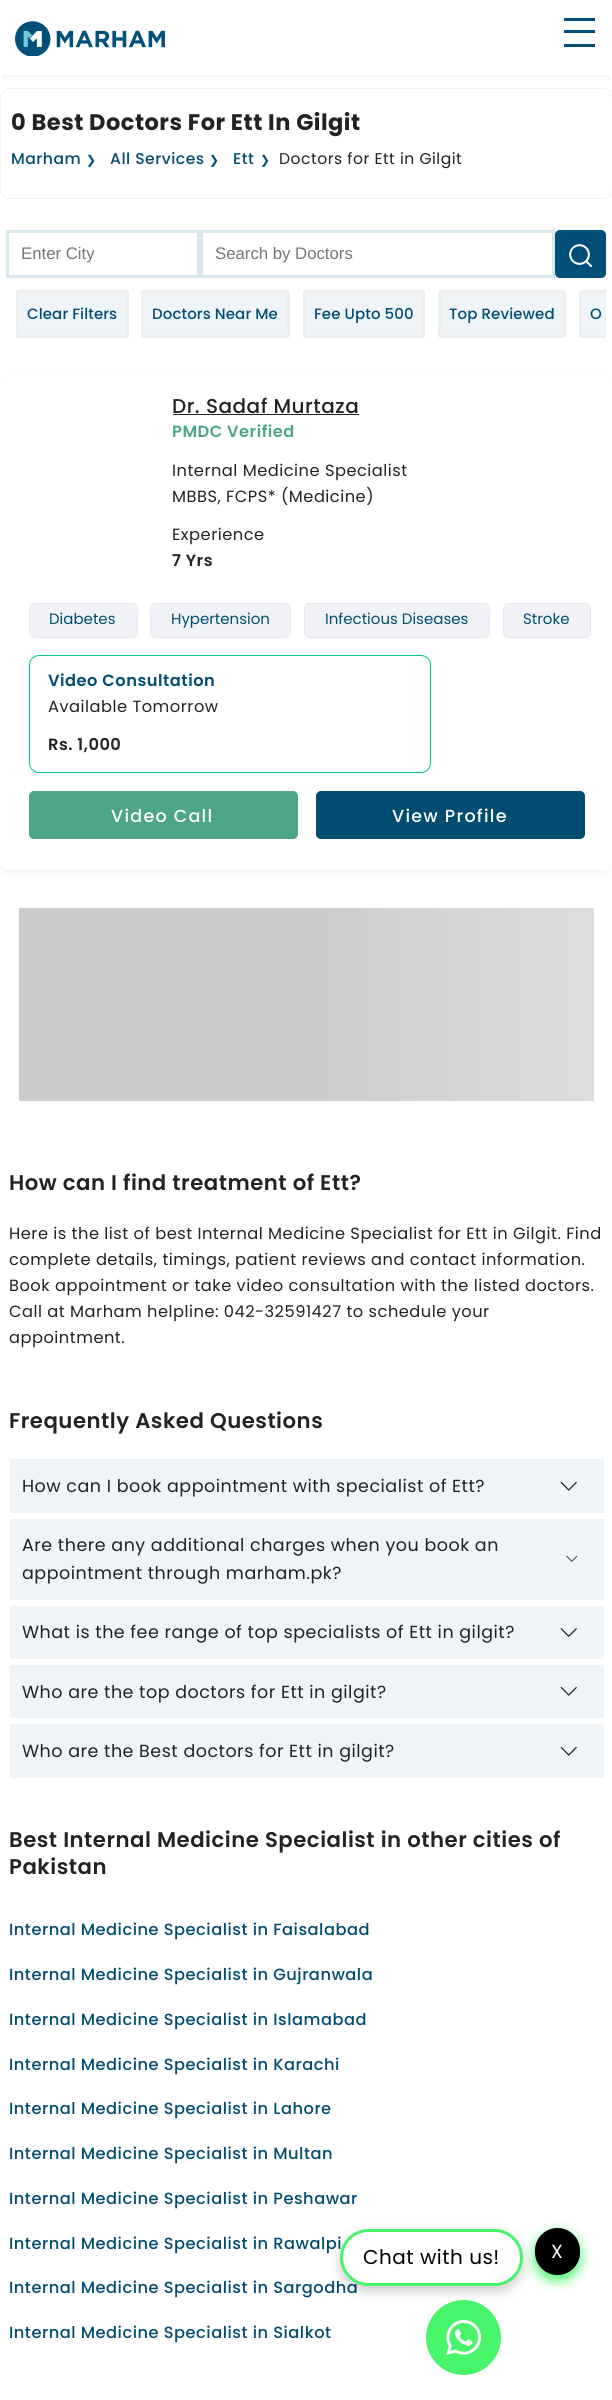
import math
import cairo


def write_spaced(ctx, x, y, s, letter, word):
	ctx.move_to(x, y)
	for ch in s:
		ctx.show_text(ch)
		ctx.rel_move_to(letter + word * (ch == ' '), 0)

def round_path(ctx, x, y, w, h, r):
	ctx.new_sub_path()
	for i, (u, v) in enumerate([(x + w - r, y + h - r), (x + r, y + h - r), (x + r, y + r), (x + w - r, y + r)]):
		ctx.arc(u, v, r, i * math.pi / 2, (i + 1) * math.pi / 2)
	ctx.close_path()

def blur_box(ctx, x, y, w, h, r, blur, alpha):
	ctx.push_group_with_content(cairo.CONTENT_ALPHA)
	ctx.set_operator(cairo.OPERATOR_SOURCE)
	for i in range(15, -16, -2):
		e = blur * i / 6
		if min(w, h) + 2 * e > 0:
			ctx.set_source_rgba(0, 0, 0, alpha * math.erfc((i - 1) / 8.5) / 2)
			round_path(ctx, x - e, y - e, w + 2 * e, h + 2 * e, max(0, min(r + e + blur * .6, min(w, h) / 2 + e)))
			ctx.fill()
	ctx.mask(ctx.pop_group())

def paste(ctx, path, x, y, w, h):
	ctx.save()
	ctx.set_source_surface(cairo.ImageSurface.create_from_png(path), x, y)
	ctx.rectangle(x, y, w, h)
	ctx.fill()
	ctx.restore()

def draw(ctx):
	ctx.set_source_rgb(1, 1, 1)
	ctx.paint()
	ctx.save()
	ctx.rectangle(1, 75, 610, 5)
	ctx.clip()
	ctx.set_source_rgb(0, 0, 0)
	blur_box(ctx, 1, 4, 610, 74, 0, 4.5, 0.06)
	ctx.restore()
	paste(ctx, 'media/1.png', 15, 21, 150, 35)
	ctx.set_source_rgb(0.004, 0.306, 0.471)
	ctx.rectangle(564, 18, 31, 3)
	ctx.rectangle(564, 30, 31, 3)
	ctx.rectangle(564, 44, 31, 3)
	ctx.fill()
	round_path(ctx, 0.5, 88.5, 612, 110, 9.5)
	ctx.set_source_rgb(0.933, 0.957, 0.965)
	ctx.set_line_width(1)
	ctx.stroke()
	ctx.select_font_face('Poppins', cairo.FONT_SLANT_NORMAL, cairo.FONT_WEIGHT_BOLD)
	ctx.set_font_size(22.5)
	ctx.set_source_rgb(0.133, 0.133, 0.133)
	write_spaced(ctx, 11, 130, '0 Best Doctors For Ett In Gilgit', 0.5, 0)
	ctx.select_font_face('Poppins Medium')
	ctx.set_font_size(15.6)
	ctx.set_source_rgb(0, 0.302, 0.443)
	write_spaced(ctx, 11, 164, 'Marham', 0.5, 0)
	ctx.select_font_face('DejaVu Sans')
	ctx.set_font_size(12)
	ctx.set_source_rgb(0.004, 0.306, 0.471)
	write_spaced(ctx, 86, 164, '❯', 0.5, 0)
	ctx.select_font_face('Poppins Medium')
	ctx.set_font_size(15.6)
	ctx.set_source_rgb(0, 0.302, 0.443)
	write_spaced(ctx, 110, 164, 'All Services', 0.5, 0)
	ctx.select_font_face('DejaVu Sans')
	ctx.set_font_size(12)
	ctx.set_source_rgb(0.004, 0.306, 0.471)
	write_spaced(ctx, 209, 164, '❯', 0.5, 0)
	ctx.select_font_face('Poppins Medium')
	ctx.set_font_size(15.6)
	ctx.set_source_rgb(0, 0.302, 0.443)
	write_spaced(ctx, 233, 164, 'Ett', 0.5, 0)
	ctx.select_font_face('DejaVu Sans')
	ctx.set_font_size(12)
	ctx.set_source_rgb(0.004, 0.306, 0.471)
	write_spaced(ctx, 260, 164, '❯', 0.5, 0)
	ctx.select_font_face('Poppins')
	ctx.set_font_size(15.6)
	ctx.set_source_rgb(0.133, 0.133, 0.133)
	write_spaced(ctx, 279, 164, 'Doctors for Ett in Gilgit', 0.5, 0)
	ctx.rectangle(7.5, 231.5, 191, 45)
	ctx.set_source_rgb(0.843, 0.906, 0.925)
	ctx.set_line_width(3)
	ctx.stroke()
	ctx.select_font_face('Liberation Sans')
	ctx.set_font_size(16.75)
	ctx.set_source_rgb(0.459, 0.459, 0.459)
	ctx.move_to(21, 259)
	ctx.show_text('Enter City')
	ctx.rectangle(201.5, 231.5, 352, 45)
	ctx.set_source_rgb(0.843, 0.906, 0.925)
	ctx.stroke()
	ctx.set_source_rgb(0.459, 0.459, 0.459)
	ctx.move_to(215, 259)
	ctx.show_text('Search by Doctors')
	ctx.set_source_rgb(0.004, 0.306, 0.471)
	round_path(ctx, 555.5, 230.5, 50, 47, 4.5)
	ctx.fill_preserve()
	ctx.set_line_width(1)
	ctx.stroke()
	paste(ctx, 'media/2.png', 569, 244, 23, 23)
	ctx.set_source_rgb(0.933, 0.957, 0.965)
	round_path(ctx, 17.5, 291.5, 110, 45, 1)
	ctx.fill_preserve()
	ctx.set_source_rgb(0.933, 0.933, 0.933)
	ctx.set_line_width(3)
	ctx.stroke()
	ctx.select_font_face('Poppins Medium')
	ctx.set_font_size(15)
	ctx.set_source_rgb(0.004, 0.306, 0.471)
	write_spaced(ctx, 27, 319, 'Clear Filters', 0.1, 0)
	ctx.set_source_rgb(0.933, 0.957, 0.965)
	round_path(ctx, 142.5, 291.5, 146, 45, 1)
	ctx.fill_preserve()
	ctx.set_source_rgb(0.933, 0.933, 0.933)
	ctx.stroke()
	ctx.set_source_rgb(0.004, 0.306, 0.471)
	write_spaced(ctx, 152, 319, 'Doctors Near Me', 0.1, 0)
	ctx.set_source_rgb(0.933, 0.957, 0.965)
	round_path(ctx, 304.5, 291.5, 119, 45, 1)
	ctx.fill_preserve()
	ctx.set_source_rgb(0.933, 0.933, 0.933)
	ctx.stroke()
	ctx.set_source_rgb(0.004, 0.306, 0.471)
	write_spaced(ctx, 314, 319, 'Fee Upto 500', 0.1, 0)
	ctx.set_source_rgb(0.933, 0.957, 0.965)
	round_path(ctx, 439.5, 291.5, 125, 45, 1)
	ctx.fill_preserve()
	ctx.set_source_rgb(0.933, 0.933, 0.933)
	ctx.stroke()
	ctx.set_source_rgb(0.004, 0.306, 0.471)
	write_spaced(ctx, 449, 319, 'Top Reviewed', 0.1, 0)
	ctx.set_source_rgb(0.933, 0.957, 0.965)
	ctx.new_path()
	ctx.move_to(581.5, 290)
	ctx.line_to(606, 290)
	ctx.line_to(606, 338)
	ctx.line_to(581.5, 338)
	ctx.curve_to(580, 338, 579, 337, 579, 335.5)
	ctx.line_to(579, 292.5)
	ctx.curve_to(579, 291, 580, 290, 581.5, 290)
	ctx.close_path()
	ctx.fill()
	ctx.save()
	ctx.rectangle(6, 290, 600, 60)
	ctx.clip()
	round_path(ctx, 580.5, 291.5, 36, 45, 1)
	ctx.set_source_rgb(0.933, 0.933, 0.933)
	ctx.stroke()
	ctx.restore()
	ctx.set_source_rgb(0.004, 0.306, 0.471)
	write_spaced(ctx, 590, 319, 'O', 0.1, 0)
	ctx.save()
	ctx.set_fill_rule(cairo.FILL_RULE_EVEN_ODD)
	ctx.new_path()
	ctx.move_to(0, 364)
	ctx.line_to(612, 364)
	ctx.line_to(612, 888)
	ctx.line_to(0, 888)
	ctx.close_path()
	ctx.move_to(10, 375)
	ctx.line_to(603, 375)
	ctx.curve_to(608.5, 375, 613, 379.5, 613, 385)
	ctx.line_to(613, 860)
	ctx.curve_to(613, 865.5, 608.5, 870, 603, 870)
	ctx.line_to(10, 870)
	ctx.curve_to(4.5, 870, 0, 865.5, 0, 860)
	ctx.line_to(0, 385)
	ctx.curve_to(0, 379.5, 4.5, 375, 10, 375)
	ctx.close_path()
	ctx.clip()
	ctx.set_source_rgb(0, 0, 0)
	blur_box(ctx, 1, 379, 610, 494, 9, 4.5, 0.06)
	ctx.restore()
	ctx.set_font_size(20)
	ctx.set_source_rgb(0.133, 0.133, 0.133)
	write_spaced(ctx, 172, 413, 'Dr. Sadaf Murtaza', 0.5, 0)
	ctx.rectangle(173, 414, 186, 1)
	ctx.fill()
	ctx.select_font_face('Poppins SemiBold')
	ctx.set_font_size(16.25)
	ctx.set_source_rgb(0.298, 0.647, 0.522)
	write_spaced(ctx, 172, 437, 'PMDC Verified', 0.5, 0)
	ctx.select_font_face('Poppins')
	ctx.set_source_rgb(0.133, 0.133, 0.133)
	for x, y, s in [
		(172, 476, 'Internal Medicine Specialist'),
		(172, 502, 'MBBS, FCPS* (Medicine)'),
		(172, 540, 'Experience'),
	]:
		write_spaced(ctx, x, y, s, 0.5, 0)
	ctx.select_font_face('Poppins SemiBold')
	write_spaced(ctx, 172, 566, '7 Yrs', 0.5, 0)
	ctx.set_source_rgb(0.941, 0.949, 0.969)
	round_path(ctx, 29.5, 603.5, 108, 34, 5.5)
	ctx.fill_preserve()
	ctx.set_source_rgb(0.906, 0.906, 0.906)
	ctx.set_line_width(1)
	ctx.stroke()
	ctx.select_font_face('Poppins')
	ctx.set_font_size(15)
	ctx.set_source_rgb(0, 0.302, 0.443)
	ctx.move_to(49, 624)
	ctx.show_text('Diabetes')
	ctx.set_source_rgb(0.941, 0.949, 0.969)
	round_path(ctx, 150.5, 603.5, 140, 34, 5.5)
	ctx.fill_preserve()
	ctx.set_source_rgb(0.906, 0.906, 0.906)
	ctx.stroke()
	ctx.set_source_rgb(0, 0.302, 0.443)
	ctx.move_to(171, 624)
	ctx.show_text('Hypertension')
	ctx.set_source_rgb(0.941, 0.949, 0.969)
	round_path(ctx, 304.5, 603.5, 185, 34, 5.5)
	ctx.fill_preserve()
	ctx.set_source_rgb(0.906, 0.906, 0.906)
	ctx.stroke()
	ctx.set_source_rgb(0, 0.302, 0.443)
	ctx.move_to(325, 624)
	ctx.show_text('Infectious Diseases')
	ctx.set_source_rgb(0.941, 0.949, 0.969)
	round_path(ctx, 503.5, 603.5, 87, 34, 5.5)
	ctx.fill_preserve()
	ctx.set_source_rgb(0.906, 0.906, 0.906)
	ctx.stroke()
	ctx.set_source_rgb(0, 0.302, 0.443)
	ctx.move_to(523, 624)
	ctx.show_text('Stroke')
	round_path(ctx, 29.5, 655.5, 401, 117, 9.5)
	ctx.set_source_rgb(0.008, 0.78, 0.51)
	ctx.stroke()
	ctx.select_font_face('Poppins SemiBold')
	ctx.set_font_size(16.25)
	ctx.set_source_rgb(0, 0.302, 0.443)
	write_spaced(ctx, 48, 686, 'Video Consultation', 0.5, 0)
	ctx.select_font_face('Poppins')
	ctx.set_source_rgb(0.133, 0.133, 0.133)
	write_spaced(ctx, 48, 712, 'Available Tomorrow', 0.5, 0)
	ctx.select_font_face('Poppins SemiBold')
	write_spaced(ctx, 48, 750, 'Rs. 1,000', 0.5, 0)
	ctx.set_source_rgb(0.298, 0.647, 0.522)
	round_path(ctx, 29.5, 791.5, 268, 47, 4.5)
	ctx.fill_preserve()
	ctx.stroke()
	ctx.select_font_face('Poppins Medium')
	ctx.set_font_size(17.5)
	ctx.set_source_rgb(1, 1, 1)
	write_spaced(ctx, 111, 822, 'Video Call', 1.25, 0)
	ctx.set_source_rgb(0, 0.302, 0.443)
	round_path(ctx, 316.5, 791.5, 268, 47, 4.5)
	ctx.fill_preserve()
	ctx.stroke()
	ctx.set_source_rgb(1, 1, 1)
	write_spaced(ctx, 392, 822, 'View Profile', 1.25, 0)
	gradient = cairo.LinearGradient(19, 1004, 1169, 1004)
	gradient.add_color_stop_rgba(0.25, 0.8, 0.8, 0.8, 1)
	gradient.add_color_stop_rgba(0.5, 0.867, 0.867, 0.867, 1)
	gradient.add_color_stop_rgba(0.75, 0.8, 0.8, 0.8, 1)
	ctx.set_source(gradient)
	ctx.rectangle(19, 908, 575, 193)
	ctx.fill()
	ctx.select_font_face('Poppins SemiBold')
	ctx.set_font_size(21.25)
	ctx.set_source_rgb(0.133, 0.133, 0.133)
	write_spaced(ctx, 9, 1190, 'How can I find treatment of Ett?', 0.5, 0)
	ctx.select_font_face('Poppins')
	ctx.set_font_size(16.25)
	for x, y, s in [
		(9, 1239, 'Here is the list of best Internal Medicine Specialist for Ett in Gilgit. Find'),
		(9, 1265, 'complete details, timings, patient reviews and contact information.'),
		(9, 1291, 'Book appointment or take video consultation with the listed doctors.'),
		(9, 1317, 'Call at Marham helpline: 042-32591427 to schedule your'),
		(9, 1343, 'appointment.'),
	]:
		write_spaced(ctx, x, y, s, 0.5, 0)
	ctx.select_font_face('Poppins SemiBold')
	ctx.set_font_size(21.25)
	write_spaced(ctx, 9, 1428, 'Frequently Asked Questions', 0.5, 0)
	ctx.set_source_rgb(0.933, 0.957, 0.965)
	ctx.rectangle(10, 1459, 594, 54)
	ctx.fill()
	ctx.select_font_face('Poppins')
	ctx.set_font_size(17.5)
	ctx.set_source_rgb(0.133, 0.133, 0.133)
	write_spaced(ctx, 22, 1492, 'How can I book appointment with specialist of Ett?', 0.5, 0)
	paste(ctx, 'media/3.png', 560, 1481, 17, 10)
	ctx.set_source_rgb(0.933, 0.957, 0.965)
	ctx.rectangle(10, 1519, 594, 81)
	ctx.fill()
	ctx.set_source_rgb(0.133, 0.133, 0.133)
	write_spaced(ctx, 22, 1551, 'Are there any additional charges when you book an', 0.5, 0)
	write_spaced(ctx, 22, 1579, 'appointment through marham.pk?', 0.5, 0)
	paste(ctx, 'media/4.png', 566, 1555, 12, 7)
	ctx.set_source_rgb(0.933, 0.957, 0.965)
	ctx.rectangle(10, 1606, 594, 53)
	ctx.fill()
	ctx.set_source_rgb(0.133, 0.133, 0.133)
	write_spaced(ctx, 22, 1638, 'What is the fee range of top specialists of Ett in gilgit?', 0.5, 0)
	paste(ctx, 'media/5.png', 560, 1628, 17, 9)
	ctx.set_source_rgb(0.933, 0.957, 0.965)
	ctx.rectangle(10, 1665, 594, 53)
	ctx.fill()
	ctx.set_source_rgb(0.133, 0.133, 0.133)
	write_spaced(ctx, 22, 1698, 'Who are the top doctors for Ett in gilgit?', 0.5, 0)
	paste(ctx, 'media/3.png', 560, 1686, 17, 10)
	ctx.set_source_rgb(0.933, 0.957, 0.965)
	ctx.rectangle(10, 1724, 594, 54)
	ctx.fill()
	ctx.set_source_rgb(0.133, 0.133, 0.133)
	write_spaced(ctx, 22, 1757, 'Who are the Best doctors for Ett in gilgit?', 0.5, 0)
	paste(ctx, 'media/3.png', 560, 1746, 17, 10)
	ctx.select_font_face('Poppins SemiBold')
	ctx.set_font_size(21.25)
	write_spaced(ctx, 9, 1847, 'Best Internal Medicine Specialist in other cities of', 0.5, 0)
	write_spaced(ctx, 9, 1874, 'Pakistan', 0.5, 0)
	ctx.select_font_face('Poppins Medium')
	ctx.set_font_size(16.25)
	ctx.set_source_rgb(0, 0.302, 0.443)
	for x, y, s in [
		(9, 1935, 'Internal Medicine Specialist in Faisalabad'),
		(9, 1980, 'Internal Medicine Specialist in Gujranwala'),
		(9, 2025, 'Internal Medicine Specialist in Islamabad'),
		(9, 2070, 'Internal Medicine Specialist in Karachi'),
		(9, 2114, 'Internal Medicine Specialist in Lahore'),
		(9, 2159, 'Internal Medicine Specialist in Multan'),
		(9, 2204, 'Internal Medicine Specialist in Peshawar'),
		(9, 2249, 'Internal Medicine Specialist in Rawalpi'),
		(9, 2293, 'Internal Medicine Specialist in Sargodha'),
		(9, 2338, 'Internal Medicine Specialist in Sialkot'),
	]:
		write_spaced(ctx, x, y, s, 0.5, 0)
	ctx.set_source_rgb(0, 0, 0)
	blur_box(ctx, 340, 2234, 183, 57, 28.5, 6, 0.2)
	ctx.set_source_rgb(1, 1, 1)
	round_path(ctx, 341.5, 2230.5, 180, 54, 27)
	ctx.fill_preserve()
	ctx.set_source_rgb(0.282, 0.957, 0.416)
	ctx.set_line_width(3)
	ctx.stroke()
	ctx.select_font_face('Poppins')
	ctx.set_font_size(20)
	ctx.set_source_rgb(0, 0, 0)
	write_spaced(ctx, 363, 2264, 'Chat with us!', 0.5, 0)
	ctx.set_source_rgb(0.282, 0.957, 0.416)
	blur_box(ctx, 535, 2233, 45, 47, 22.5, 6, 1)
	ctx.set_source_rgb(0, 0, 0)
	round_path(ctx, 536.5, 2229.5, 42, 44, 21)
	ctx.fill_preserve()
	ctx.stroke()
	ctx.set_font_size(19)
	ctx.set_source_rgb(1, 1, 1)
	write_spaced(ctx, 551, 2258, 'X', 1.25, 0)
	ctx.set_source_rgb(0.282, 0.957, 0.416)
	ctx.new_path()
	ctx.arc(463.5, 2337.5, 37.5, 0, 2 * math.pi)
	ctx.fill()
	paste(ctx, 'media/6.png', 446, 2320, 35, 35)


surface = cairo.ImageSurface(cairo.FORMAT_RGB24, 612, 2400)
ctx = cairo.Context(surface)
options = cairo.FontOptions()
options.set_hint_metrics(cairo.HINT_METRICS_OFF)
options.set_hint_style(cairo.HINT_STYLE_NONE)
ctx.set_font_options(options)
ctx.set_miter_limit(4)
draw(ctx)
surface.write_to_png('image.png')
